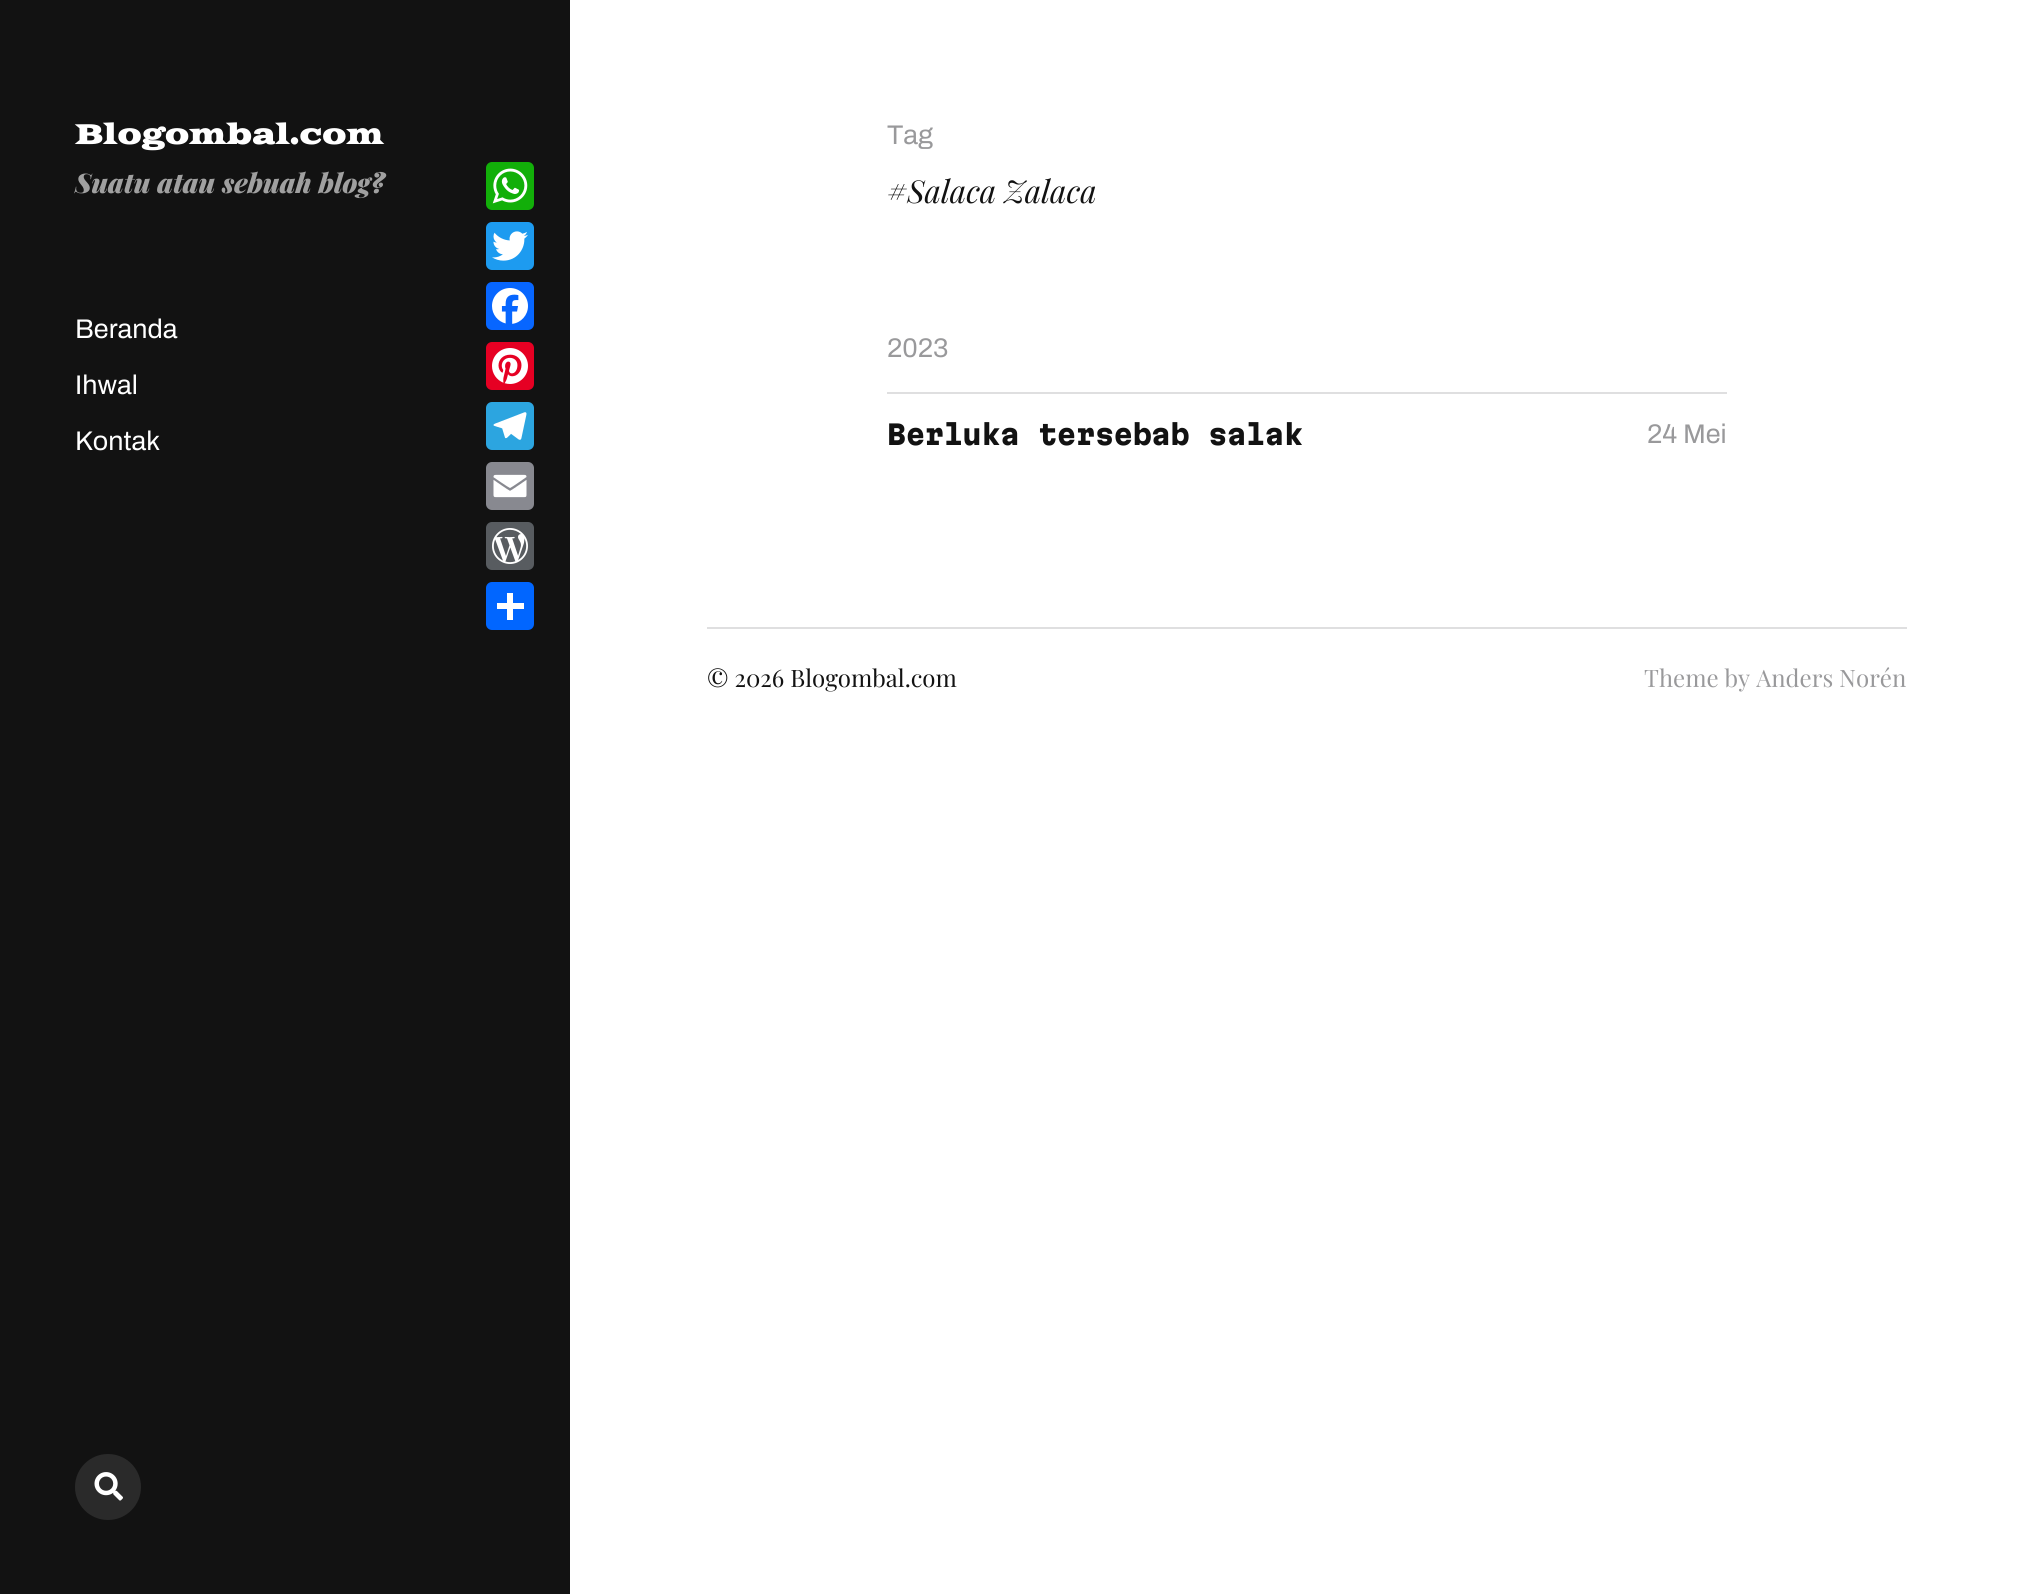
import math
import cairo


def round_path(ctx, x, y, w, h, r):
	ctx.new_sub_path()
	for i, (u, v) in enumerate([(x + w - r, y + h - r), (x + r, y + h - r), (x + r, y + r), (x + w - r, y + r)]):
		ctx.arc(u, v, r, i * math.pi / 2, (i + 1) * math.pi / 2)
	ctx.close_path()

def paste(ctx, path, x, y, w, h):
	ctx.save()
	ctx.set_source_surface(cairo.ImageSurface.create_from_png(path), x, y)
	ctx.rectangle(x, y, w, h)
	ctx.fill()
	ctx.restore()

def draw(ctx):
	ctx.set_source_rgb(1, 1, 1)
	ctx.paint()
	ctx.set_source_rgb(0.071, 0.071, 0.071)
	ctx.rectangle(0, 0, 570, 1594)
	ctx.fill()
	ctx.select_font_face('Goblin One', cairo.FONT_SLANT_NORMAL, cairo.FONT_WEIGHT_BOLD)
	ctx.set_font_size(27)
	ctx.set_source_rgb(1, 1, 1)
	ctx.move_to(75, 144)
	ctx.show_text('Blogombal.com')
	ctx.select_font_face('Playfair Display Black', cairo.FONT_SLANT_ITALIC)
	ctx.set_source_rgb(0.627, 0.627, 0.627)
	ctx.move_to(75, 193)
	ctx.show_text('Suatu atau sebuah blog?')
	ctx.select_font_face('Archivo SemiBold')
	ctx.set_source_rgb(1, 1, 1)
	for x, y, s in [
		(75, 338, 'Beranda'),
		(75, 394, 'Ihwal'),
		(75, 450, 'Kontak'),
	]:
		ctx.move_to(x, y)
		ctx.show_text(s)
	ctx.set_source_rgb(0.165, 0.165, 0.165)
	ctx.new_path()
	ctx.arc(108, 1487, 33, 0, 2 * math.pi)
	ctx.fill()
	paste(ctx, 'media/1.png', 94, 1472, 29, 29)
	ctx.set_source_rgb(0.071, 0.686, 0.039)
	round_path(ctx, 486, 162, 48, 48, 6)
	ctx.fill()
	paste(ctx, 'media/2.png', 492, 168, 36, 36)
	ctx.set_source_rgb(0.114, 0.608, 0.941)
	round_path(ctx, 486, 222, 48, 48, 6)
	ctx.fill()
	paste(ctx, 'media/3.png', 492, 231, 36, 30)
	ctx.set_source_rgb(0.031, 0.4, 1)
	round_path(ctx, 486, 282, 48, 48, 6)
	ctx.fill()
	paste(ctx, 'media/4.png', 492, 288, 36, 36)
	ctx.set_source_rgb(0.902, 0, 0.137)
	round_path(ctx, 486, 342, 48, 48, 6)
	ctx.fill()
	paste(ctx, 'media/5.png', 492, 348, 36, 36)
	ctx.set_source_rgb(0.173, 0.647, 0.878)
	round_path(ctx, 486, 402, 48, 48, 6)
	ctx.fill()
	paste(ctx, 'media/6.png', 493, 412, 34, 28)
	ctx.set_source_rgb(0.533, 0.537, 0.565)
	round_path(ctx, 486, 462, 48, 48, 6)
	ctx.fill()
	paste(ctx, 'media/7.png', 493, 474, 34, 24)
	ctx.set_source_rgb(0.345, 0.361, 0.376)
	round_path(ctx, 486, 522, 48, 48, 6)
	ctx.fill()
	paste(ctx, 'media/8.png', 492, 528, 36, 36)
	ctx.set_source_rgb(0.004, 0.4, 1)
	round_path(ctx, 486, 582, 48, 48, 6)
	ctx.fill()
	ctx.set_source_rgb(1, 1, 1)
	ctx.rectangle(507, 593, 6, 27)
	ctx.fill()
	ctx.rectangle(497, 603, 27, 6)
	ctx.fill()
	ctx.set_source_rgb(0.6, 0.6, 0.608)
	ctx.move_to(887, 144)
	ctx.show_text('Tag')
	ctx.select_font_face('Playfair Display', cairo.FONT_SLANT_ITALIC)
	ctx.set_font_size(31.5)
	ctx.set_source_rgb(0.071, 0.071, 0.071)
	ctx.move_to(887, 203)
	ctx.show_text('#Salaca Zalaca')
	ctx.select_font_face('Archivo SemiBold')
	ctx.set_font_size(27)
	ctx.set_source_rgb(0.6, 0.6, 0.608)
	ctx.move_to(887, 357)
	ctx.show_text('2023')
	ctx.set_source_rgb(0.875, 0.875, 0.878)
	ctx.rectangle(887, 392, 840, 2)
	ctx.fill()
	ctx.select_font_face('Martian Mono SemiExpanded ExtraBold')
	ctx.set_source_rgb(0.071, 0.071, 0.071)
	ctx.move_to(887, 445)
	ctx.show_text('Berluka tersebab salak')
	ctx.select_font_face('Archivo SemiBold')
	ctx.set_source_rgb(0.6, 0.6, 0.608)
	ctx.move_to(1647, 443)
	ctx.show_text('24 Mei')
	ctx.set_source_rgb(0.875, 0.875, 0.878)
	ctx.rectangle(707, 627, 1200, 2)
	ctx.fill()
	ctx.select_font_face('Playfair Display')
	ctx.set_font_size(24)
	ctx.set_source_rgb(0.071, 0.071, 0.071)
	ctx.move_to(707, 687)
	ctx.show_text('© 2026 Blogombal.com')
	ctx.set_source_rgb(0.6, 0.6, 0.608)
	ctx.move_to(1644, 687)
	ctx.show_text('Theme by Anders Norén')


surface = cairo.ImageSurface(cairo.FORMAT_RGB24, 2042, 1594)
ctx = cairo.Context(surface)
options = cairo.FontOptions()
options.set_hint_metrics(cairo.HINT_METRICS_OFF)
options.set_hint_style(cairo.HINT_STYLE_NONE)
ctx.set_font_options(options)
ctx.set_miter_limit(4)
draw(ctx)
surface.write_to_png('image.png')
